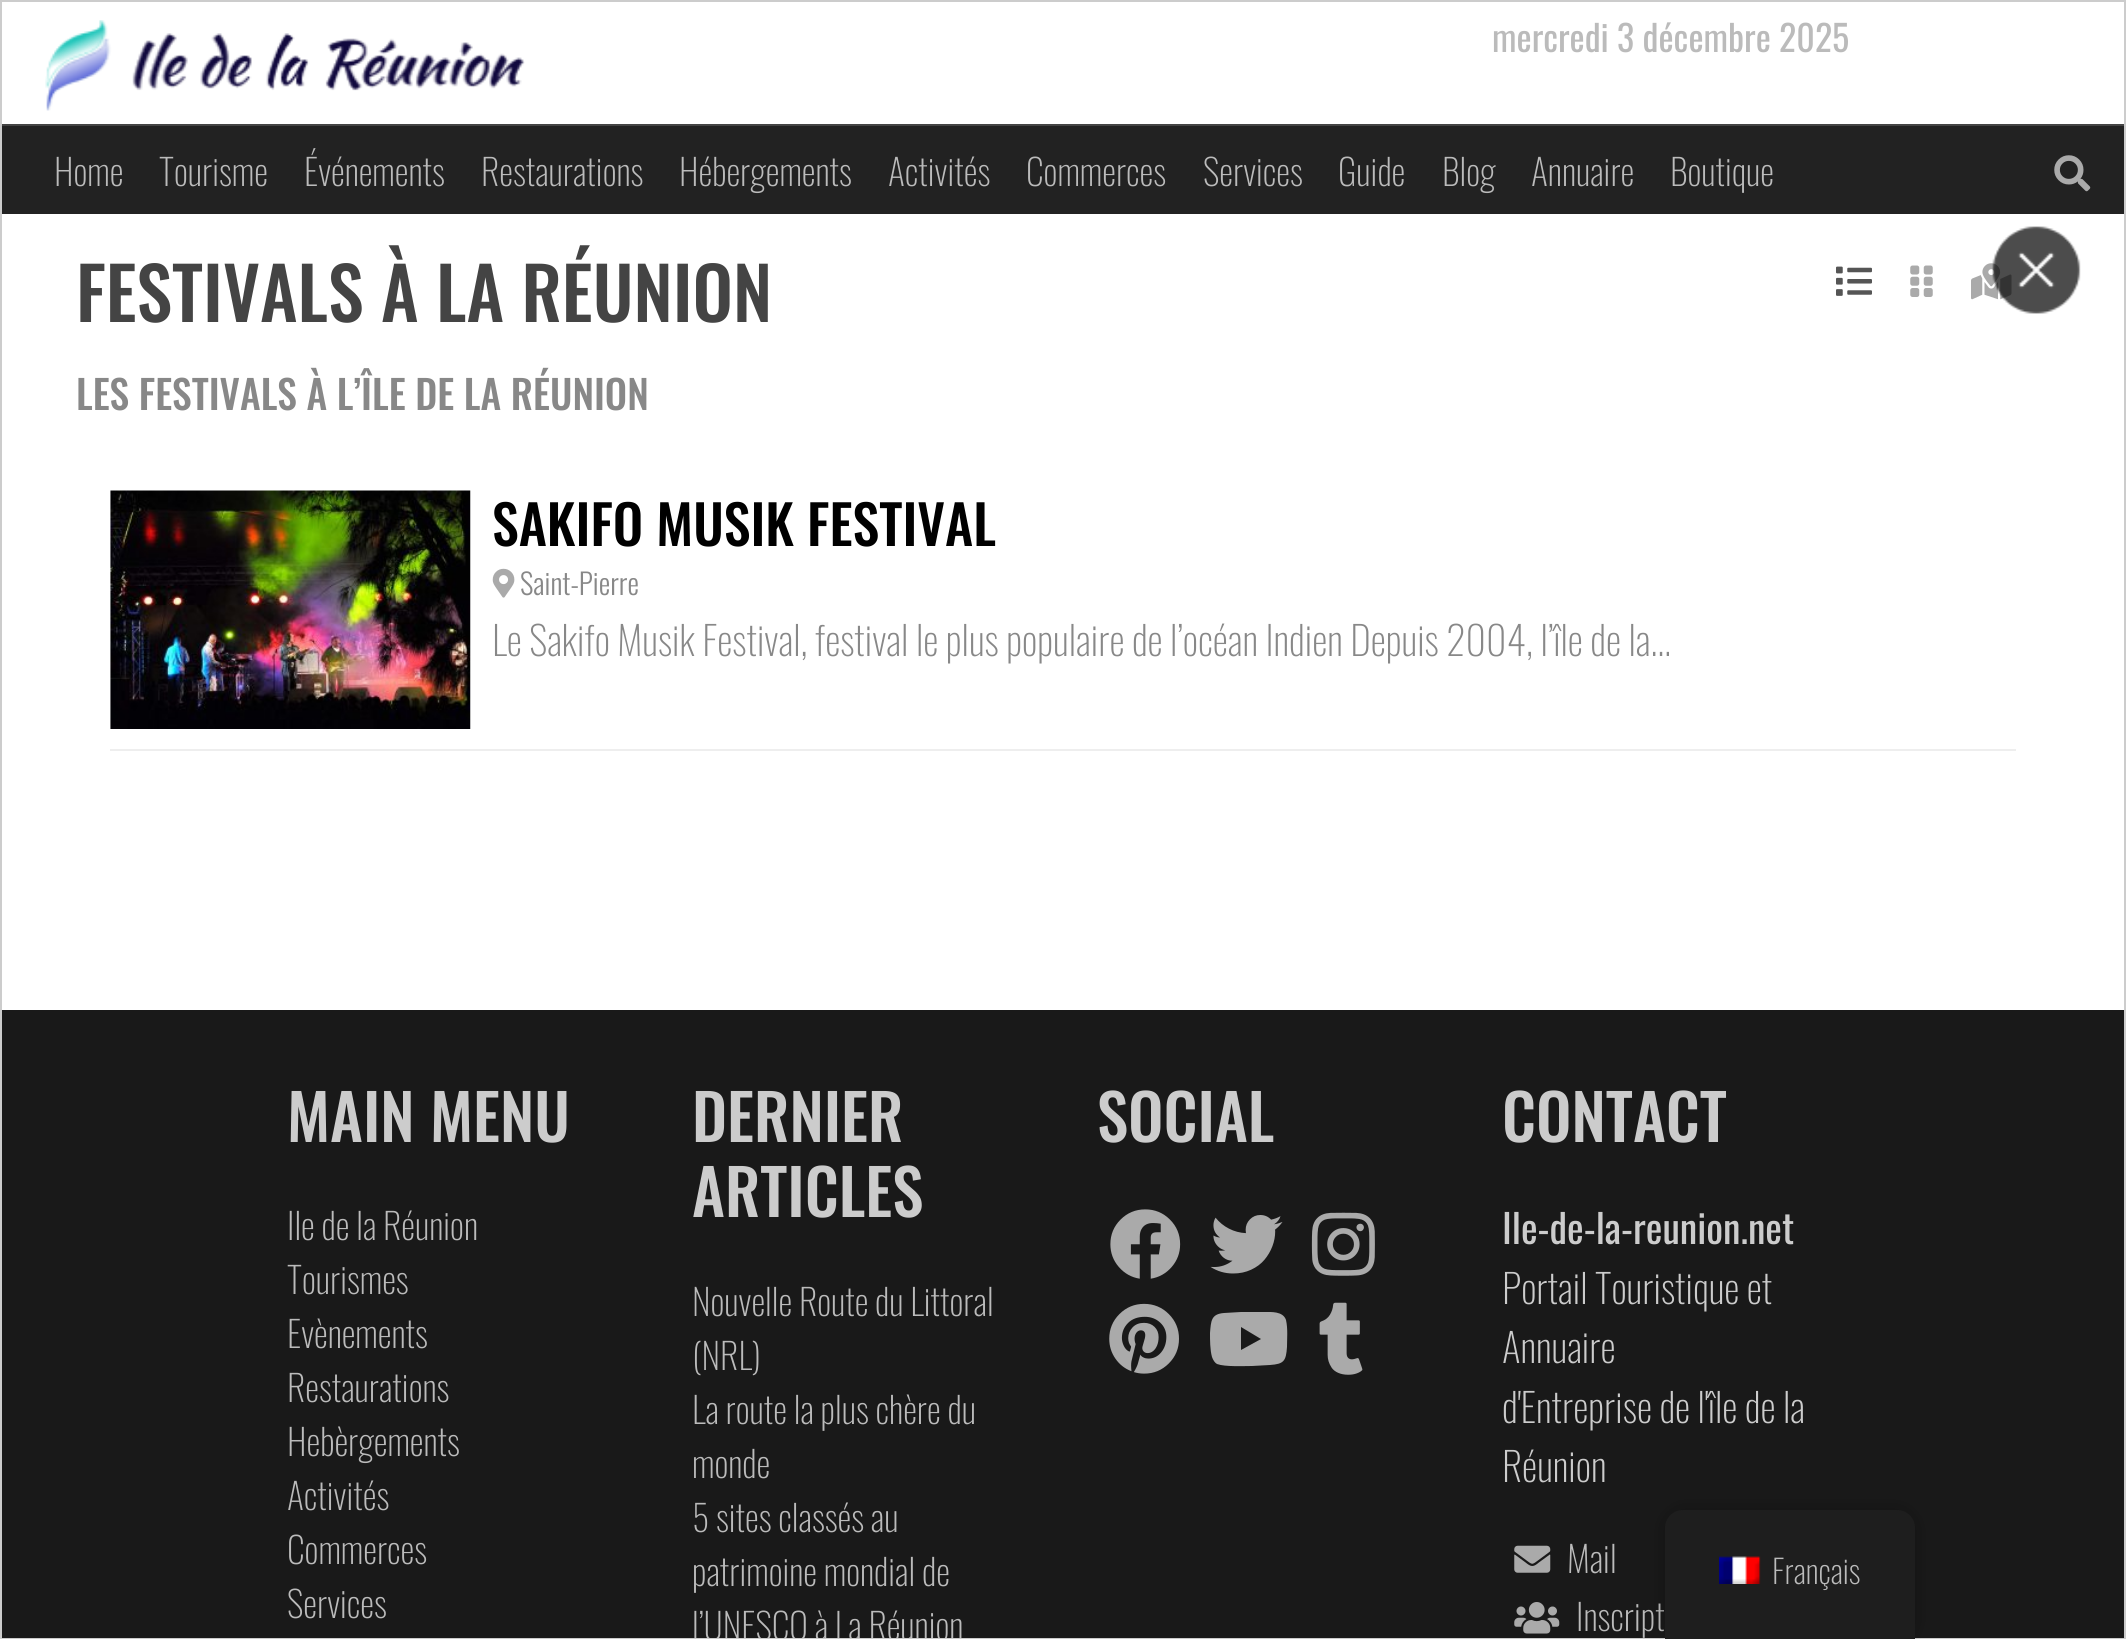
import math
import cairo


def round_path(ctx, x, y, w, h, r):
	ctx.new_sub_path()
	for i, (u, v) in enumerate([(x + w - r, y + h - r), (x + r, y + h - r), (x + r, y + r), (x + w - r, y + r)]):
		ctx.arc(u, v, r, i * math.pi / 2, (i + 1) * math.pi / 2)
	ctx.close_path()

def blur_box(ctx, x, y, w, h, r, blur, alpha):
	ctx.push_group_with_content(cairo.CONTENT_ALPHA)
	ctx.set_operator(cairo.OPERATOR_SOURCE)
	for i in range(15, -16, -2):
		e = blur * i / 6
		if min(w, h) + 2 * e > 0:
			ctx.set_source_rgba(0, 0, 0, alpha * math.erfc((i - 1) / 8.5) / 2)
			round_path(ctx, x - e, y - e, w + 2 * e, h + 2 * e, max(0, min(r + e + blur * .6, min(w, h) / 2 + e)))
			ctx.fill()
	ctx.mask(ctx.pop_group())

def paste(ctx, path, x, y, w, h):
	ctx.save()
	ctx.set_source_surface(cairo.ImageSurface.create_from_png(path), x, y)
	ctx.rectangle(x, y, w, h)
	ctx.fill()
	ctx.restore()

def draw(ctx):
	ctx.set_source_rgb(1, 1, 1)
	ctx.paint()
	paste(ctx, 'media/1.png', 45, 20, 480, 91)
	ctx.select_font_face('Oswald')
	ctx.set_font_size(36)
	ctx.set_source_rgb(0.733, 0.733, 0.733)
	ctx.move_to(1492, 52)
	ctx.show_text('mercredi 3 décembre 2025')
	ctx.set_source_rgb(0.133, 0.133, 0.133)
	ctx.rectangle(2, 126, 2122, 88)
	ctx.fill()
	ctx.set_source_rgb(0.267, 0.267, 0.267)
	ctx.rectangle(0, 124, 2126, 2)
	ctx.fill()
	ctx.select_font_face('Oswald ExtraLight')
	ctx.set_source_rgb(0.733, 0.733, 0.733)
	for x, y, s in [
		(54, 186, 'Home'),
		(159, 186, 'Tourisme'),
		(304, 186, 'Événements'),
		(481, 186, 'Restaurations'),
		(679, 186, 'Hébergements'),
		(888, 186, 'Activités'),
		(1026, 186, 'Commerces'),
		(1203, 186, 'Services'),
		(1338, 186, 'Guide'),
		(1442, 186, 'Blog'),
		(1531, 186, 'Annuaire'),
		(1670, 186, 'Boutique'),
	]:
		ctx.move_to(x, y)
		ctx.show_text(s)
	paste(ctx, 'media/2.png', 2054, 155, 37, 37)
	paste(ctx, 'media/4.png', 1836, 266, 36, 30)
	paste(ctx, 'media/5.png', 1910, 265, 23, 32)
	paste(ctx, 'media/6.png', 1971, 263, 41, 37)
	ctx.set_source_rgb(0.933, 0.933, 0.933)
	ctx.rectangle(110, 749, 1906, 2)
	ctx.fill()
	paste(ctx, 'media/7.png', 110, 490, 361, 239)
	paste(ctx, 'media/8.png', 492, 568, 23, 30)
	ctx.set_source_rgb(0.098, 0.098, 0.098)
	ctx.rectangle(2, 1010, 2122, 628)
	ctx.fill()
	ctx.set_source_rgb(0.733, 0.733, 0.733)
	ctx.move_to(692, 1640)
	ctx.show_text('l’UNESCO à La Réunion')
	paste(ctx, 'media/9.png', 1110, 1209, 71, 70)
	paste(ctx, 'media/10.png', 1210, 1215, 73, 59)
	paste(ctx, 'media/11.png', 1311, 1212, 64, 64)
	paste(ctx, 'media/12.png', 1109, 1303, 70, 71)
	ctx.set_source_rgb(0.667, 0.667, 0.667)
	ctx.new_path()
	ctx.move_to(1286, 1320)
	ctx.curve_to(1288, 1329, 1287, 1339, 1287, 1347)
	ctx.curve_to(1286, 1361, 1284, 1364, 1270, 1365)
	ctx.line_to(1252, 1366)
	ctx.curve_to(1244, 1366, 1225, 1367, 1217, 1364)
	ctx.curve_to(1215, 1363, 1213, 1360, 1212, 1357)
	ctx.curve_to(1210, 1350, 1210, 1340, 1210, 1333)
	ctx.curve_to(1211, 1321, 1211, 1314, 1224, 1313)
	ctx.line_to(1241, 1312)
	ctx.line_to(1264, 1312)
	ctx.curve_to(1271, 1312, 1283, 1311, 1286, 1320)
	ctx.close_path()
	ctx.move_to(1241, 1350)
	ctx.line_to(1261, 1339)
	ctx.line_to(1241, 1327)
	ctx.close_path()
	ctx.fill()
	paste(ctx, 'media/13.png', 1319, 1302, 44, 73)
	paste(ctx, 'media/14.png', 1514, 1545, 37, 28)
	paste(ctx, 'media/15.png', 1514, 1602, 46, 32)
	ctx.rectangle(1, 1, 2124, 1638)
	ctx.set_source_rgb(0.8, 0.8, 0.8)
	ctx.stroke()
	paste(ctx, 'media/3.png', 1992, 226, 89, 88)
	ctx.select_font_face('Oswald Medium')
	ctx.set_font_size(72)
	ctx.set_source_rgb(0.267, 0.267, 0.267)
	ctx.move_to(76, 322)
	ctx.show_text('FESTIVALS À LA RÉUNION')
	ctx.set_font_size(39.6)
	ctx.set_source_rgb(0.533, 0.533, 0.533)
	ctx.move_to(76, 410)
	ctx.show_text('LES FESTIVALS À L’ÎLE DE LA RÉUNION')
	ctx.set_font_size(54)
	ctx.set_source_rgb(0, 0, 0)
	ctx.move_to(492, 546)
	ctx.show_text('SAKIFO MUSIK FESTIVAL')
	ctx.select_font_face('Oswald Light')
	ctx.set_font_size(29)
	ctx.set_source_rgb(0.533, 0.533, 0.533)
	ctx.move_to(520, 595)
	ctx.show_text('Saint-Pierre')
	ctx.select_font_face('Oswald ExtraLight')
	ctx.set_font_size(39.6)
	ctx.move_to(492, 656)
	ctx.show_text('Le Sakifo Musik Festival, festival le plus populaire de l’océan Indien Depuis 2004, l’île de la…')
	ctx.select_font_face('Oswald Medium')
	ctx.set_font_size(63)
	ctx.set_source_rgb(0.8, 0.8, 0.8)
	ctx.move_to(287, 1142)
	ctx.show_text('MAIN MENU')
	ctx.select_font_face('Oswald ExtraLight')
	ctx.set_font_size(36)
	ctx.set_source_rgb(0.733, 0.733, 0.733)
	for x, y, s in [
		(287, 1240, 'Ile de la Réunion'),
		(287, 1294, 'Tourismes'),
		(287, 1348, 'Evènements'),
		(287, 1402, 'Restaurations'),
		(287, 1456, 'Hebèrgements'),
		(287, 1510, 'Activités'),
		(287, 1564, 'Commerces'),
		(287, 1618, 'Services'),
	]:
		ctx.move_to(x, y)
		ctx.show_text(s)
	ctx.select_font_face('Oswald Medium')
	ctx.set_font_size(63)
	ctx.set_source_rgb(0.8, 0.8, 0.8)
	ctx.move_to(692, 1142)
	ctx.show_text('DERNIER')
	ctx.move_to(692, 1217)
	ctx.show_text('ARTICLES')
	ctx.select_font_face('Oswald ExtraLight')
	ctx.set_font_size(36)
	ctx.set_source_rgb(0.733, 0.733, 0.733)
	for x, y, s in [
		(692, 1316, 'Nouvelle Route du Littoral'),
		(692, 1370, '(NRL)'),
		(692, 1424, 'La route la plus chère du'),
		(692, 1478, 'monde'),
		(692, 1532, '5 sites classés au'),
		(692, 1586, 'patrimoine mondial de'),
	]:
		ctx.move_to(x, y)
		ctx.show_text(s)
	ctx.select_font_face('Oswald Medium')
	ctx.set_font_size(63)
	ctx.set_source_rgb(0.8, 0.8, 0.8)
	ctx.move_to(1097, 1142)
	ctx.show_text('SOCIAL')
	ctx.move_to(1502, 1142)
	ctx.show_text('CONTACT')
	ctx.select_font_face('Oswald')
	ctx.set_font_size(39.6)
	ctx.move_to(1502, 1244)
	ctx.show_text('Ile-de-la-reunion.net')
	ctx.select_font_face('Oswald ExtraLight')
	for x, y, s in [
		(1502, 1304, 'Portail Touristique et'),
		(1502, 1363, 'Annuaire'),
		(1502, 1423, 'd\'Entreprise de l\'île de la'),
		(1502, 1482, 'Réunion'),
	]:
		ctx.move_to(x, y)
		ctx.show_text(s)
	ctx.set_font_size(36)
	ctx.set_source_rgb(0.733, 0.733, 0.733)
	ctx.move_to(1567, 1573)
	ctx.show_text('Mail')
	ctx.move_to(1576, 1631)
	ctx.show_text('Inscript')
	ctx.set_source_rgb(0, 0, 0)
	blur_box(ctx, 1665, 1510, 250, 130, 18, 9, 0.25)
	ctx.set_source_rgb(0.118, 0.118, 0.118)
	ctx.new_path()
	ctx.move_to(1683, 1510)
	ctx.line_to(1897, 1510)
	ctx.curve_to(1907, 1510, 1915, 1518, 1915, 1528)
	ctx.line_to(1915, 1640)
	ctx.line_to(1665, 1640)
	ctx.line_to(1665, 1528)
	ctx.curve_to(1665, 1518, 1673, 1510, 1683, 1510)
	ctx.close_path()
	ctx.fill()
	paste(ctx, 'media/16.png', 1719, 1556, 42, 28)
	ctx.set_font_size(32.5)
	ctx.set_source_rgb(0.733, 0.733, 0.733)
	ctx.move_to(1772, 1584)
	ctx.show_text('Français')


surface = cairo.ImageSurface(cairo.FORMAT_RGB24, 2126, 1639)
ctx = cairo.Context(surface)
options = cairo.FontOptions()
options.set_hint_metrics(cairo.HINT_METRICS_OFF)
options.set_hint_style(cairo.HINT_STYLE_NONE)
ctx.set_font_options(options)
ctx.set_miter_limit(4)
draw(ctx)
surface.write_to_png('image.png')
